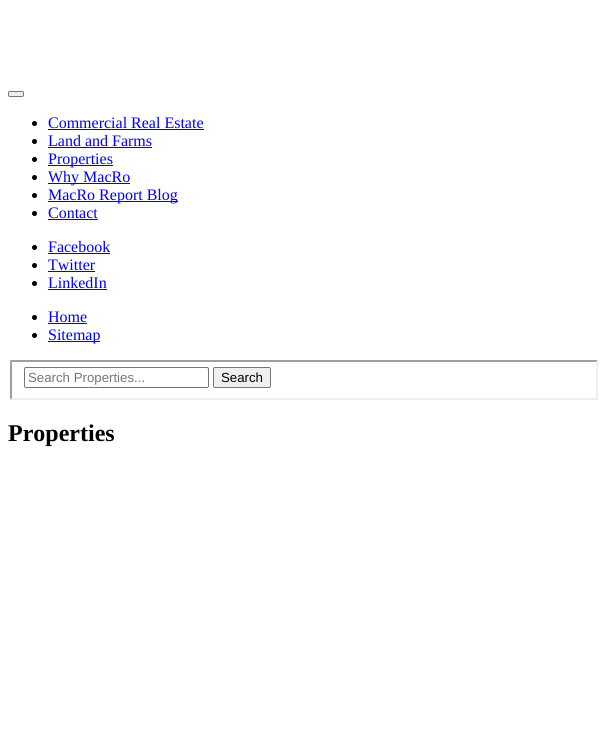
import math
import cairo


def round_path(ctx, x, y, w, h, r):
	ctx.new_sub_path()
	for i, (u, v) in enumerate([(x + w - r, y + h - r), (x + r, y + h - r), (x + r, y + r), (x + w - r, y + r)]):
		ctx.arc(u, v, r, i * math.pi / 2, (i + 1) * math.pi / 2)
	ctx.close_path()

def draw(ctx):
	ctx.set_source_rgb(1, 1, 1)
	ctx.paint()
	ctx.set_source_rgb(0.937, 0.937, 0.937)
	round_path(ctx, 8.5, 91.5, 15, 5, 1.5)
	ctx.fill_preserve()
	ctx.set_source_rgb(0.463, 0.463, 0.463)
	ctx.set_line_width(1)
	ctx.stroke()
	ctx.set_source_rgb(0, 0, 0)
	ctx.arc(34.5, 123.5, 2.5, 0, 2 * math.pi)
	ctx.fill()
	ctx.select_font_face('Liberation Serif')
	ctx.set_font_size(16)
	ctx.set_source_rgb(0, 0, 0.933)
	ctx.move_to(48, 128)
	ctx.show_text('Commercial Real Estate')
	ctx.rectangle(48, 129, 156, 1)
	ctx.fill()
	ctx.set_source_rgb(0, 0, 0)
	ctx.arc(34.5, 141.5, 2.5, 0, 2 * math.pi)
	ctx.fill()
	ctx.set_source_rgb(0, 0, 0.933)
	ctx.move_to(48, 146)
	ctx.show_text('Land and Farms')
	ctx.rectangle(48, 147, 104, 1)
	ctx.fill()
	ctx.set_source_rgb(0, 0, 0)
	ctx.arc(34.5, 159.5, 2.5, 0, 2 * math.pi)
	ctx.fill()
	ctx.set_source_rgb(0, 0, 0.933)
	ctx.rectangle(48, 165, 65, 1)
	ctx.fill()
	ctx.move_to(48, 164)
	ctx.show_text('Properties')
	ctx.set_source_rgb(0, 0, 0)
	ctx.new_path()
	ctx.arc(34.5, 177.5, 2.5, 0, 2 * math.pi)
	ctx.fill()
	ctx.set_source_rgb(0, 0, 0.933)
	ctx.rectangle(48, 183, 82, 1)
	ctx.fill()
	ctx.move_to(48, 182)
	ctx.show_text('Why MacRo')
	ctx.set_source_rgb(0, 0, 0)
	ctx.new_path()
	ctx.arc(34.5, 195.5, 2.5, 0, 2 * math.pi)
	ctx.fill()
	ctx.set_source_rgb(0, 0, 0.933)
	ctx.rectangle(48, 201, 130, 1)
	ctx.fill()
	ctx.move_to(48, 200)
	ctx.show_text('MacRo Report Blog')
	ctx.set_source_rgb(0, 0, 0)
	ctx.new_path()
	ctx.arc(34.5, 213.5, 2.5, 0, 2 * math.pi)
	ctx.fill()
	ctx.set_source_rgb(0, 0, 0.933)
	ctx.move_to(48, 218)
	ctx.show_text('Contact')
	ctx.rectangle(48, 219, 50, 1)
	ctx.fill()
	ctx.set_source_rgb(0, 0, 0)
	ctx.arc(34.5, 247.5, 2.5, 0, 2 * math.pi)
	ctx.fill()
	ctx.set_source_rgb(0, 0, 0.933)
	ctx.move_to(48, 252)
	ctx.show_text('Facebook')
	ctx.rectangle(48, 253, 62, 1)
	ctx.fill()
	ctx.set_source_rgb(0, 0, 0)
	ctx.arc(34.5, 265.5, 2.5, 0, 2 * math.pi)
	ctx.fill()
	ctx.set_source_rgb(0, 0, 0.933)
	ctx.move_to(48, 270)
	ctx.show_text('Twitter')
	ctx.rectangle(48, 271, 47, 1)
	ctx.fill()
	ctx.set_source_rgb(0, 0, 0)
	ctx.arc(34.5, 283.5, 2.5, 0, 2 * math.pi)
	ctx.fill()
	ctx.set_source_rgb(0, 0, 0.933)
	ctx.move_to(48, 288)
	ctx.show_text('LinkedIn')
	ctx.rectangle(48, 289, 59, 1)
	ctx.fill()
	ctx.set_source_rgb(0, 0, 0)
	ctx.arc(34.5, 317.5, 2.5, 0, 2 * math.pi)
	ctx.fill()
	ctx.set_source_rgb(0, 0, 0.933)
	ctx.move_to(48, 322)
	ctx.show_text('Home')
	ctx.rectangle(48, 323, 39, 1)
	ctx.fill()
	ctx.set_source_rgb(0, 0, 0)
	ctx.arc(34.5, 335.5, 2.5, 0, 2 * math.pi)
	ctx.fill()
	ctx.set_source_rgb(0, 0, 0.933)
	ctx.rectangle(48, 341, 52, 1)
	ctx.fill()
	ctx.move_to(48, 340)
	ctx.show_text('Sitemap')
	ctx.set_source_rgb(0.624, 0.624, 0.624)
	ctx.new_path()
	ctx.move_to(10, 360)
	ctx.line_to(598, 360)
	ctx.line_to(596, 362)
	ctx.line_to(12, 362)
	ctx.close_path()
	ctx.fill()
	ctx.set_source_rgb(0.937, 0.937, 0.937)
	ctx.new_path()
	ctx.move_to(598, 360)
	ctx.line_to(598, 400)
	ctx.line_to(596, 398)
	ctx.line_to(596, 362)
	ctx.close_path()
	ctx.fill()
	ctx.new_path()
	ctx.move_to(598, 400)
	ctx.line_to(10, 400)
	ctx.line_to(12, 398)
	ctx.line_to(596, 398)
	ctx.close_path()
	ctx.fill()
	ctx.set_source_rgb(0.624, 0.624, 0.624)
	ctx.new_path()
	ctx.move_to(10, 400)
	ctx.line_to(10, 360)
	ctx.line_to(12, 362)
	ctx.line_to(12, 398)
	ctx.close_path()
	ctx.fill()
	round_path(ctx, 24.5, 367.5, 184, 20, 1.5)
	ctx.set_source_rgb(0.463, 0.463, 0.463)
	ctx.stroke()
	ctx.select_font_face('Liberation Sans')
	ctx.set_font_size(13.25)
	ctx.set_source_rgb(0.459, 0.459, 0.459)
	ctx.move_to(28, 382)
	ctx.show_text('Search Properties...')
	ctx.set_source_rgb(0.937, 0.937, 0.937)
	round_path(ctx, 213.5, 367.5, 57, 20, 1.5)
	ctx.fill_preserve()
	ctx.set_source_rgb(0.463, 0.463, 0.463)
	ctx.stroke()
	ctx.set_source_rgb(0, 0, 0)
	ctx.move_to(221, 382)
	ctx.show_text('Search')
	ctx.select_font_face('Liberation Serif', cairo.FONT_SLANT_NORMAL, cairo.FONT_WEIGHT_BOLD)
	ctx.set_font_size(24)
	ctx.move_to(8, 441)
	ctx.show_text('Properties')


surface = cairo.ImageSurface(cairo.FORMAT_RGB24, 608, 744)
ctx = cairo.Context(surface)
options = cairo.FontOptions()
options.set_hint_metrics(cairo.HINT_METRICS_OFF)
options.set_hint_style(cairo.HINT_STYLE_NONE)
ctx.set_font_options(options)
ctx.set_miter_limit(4)
draw(ctx)
surface.write_to_png('image.png')
